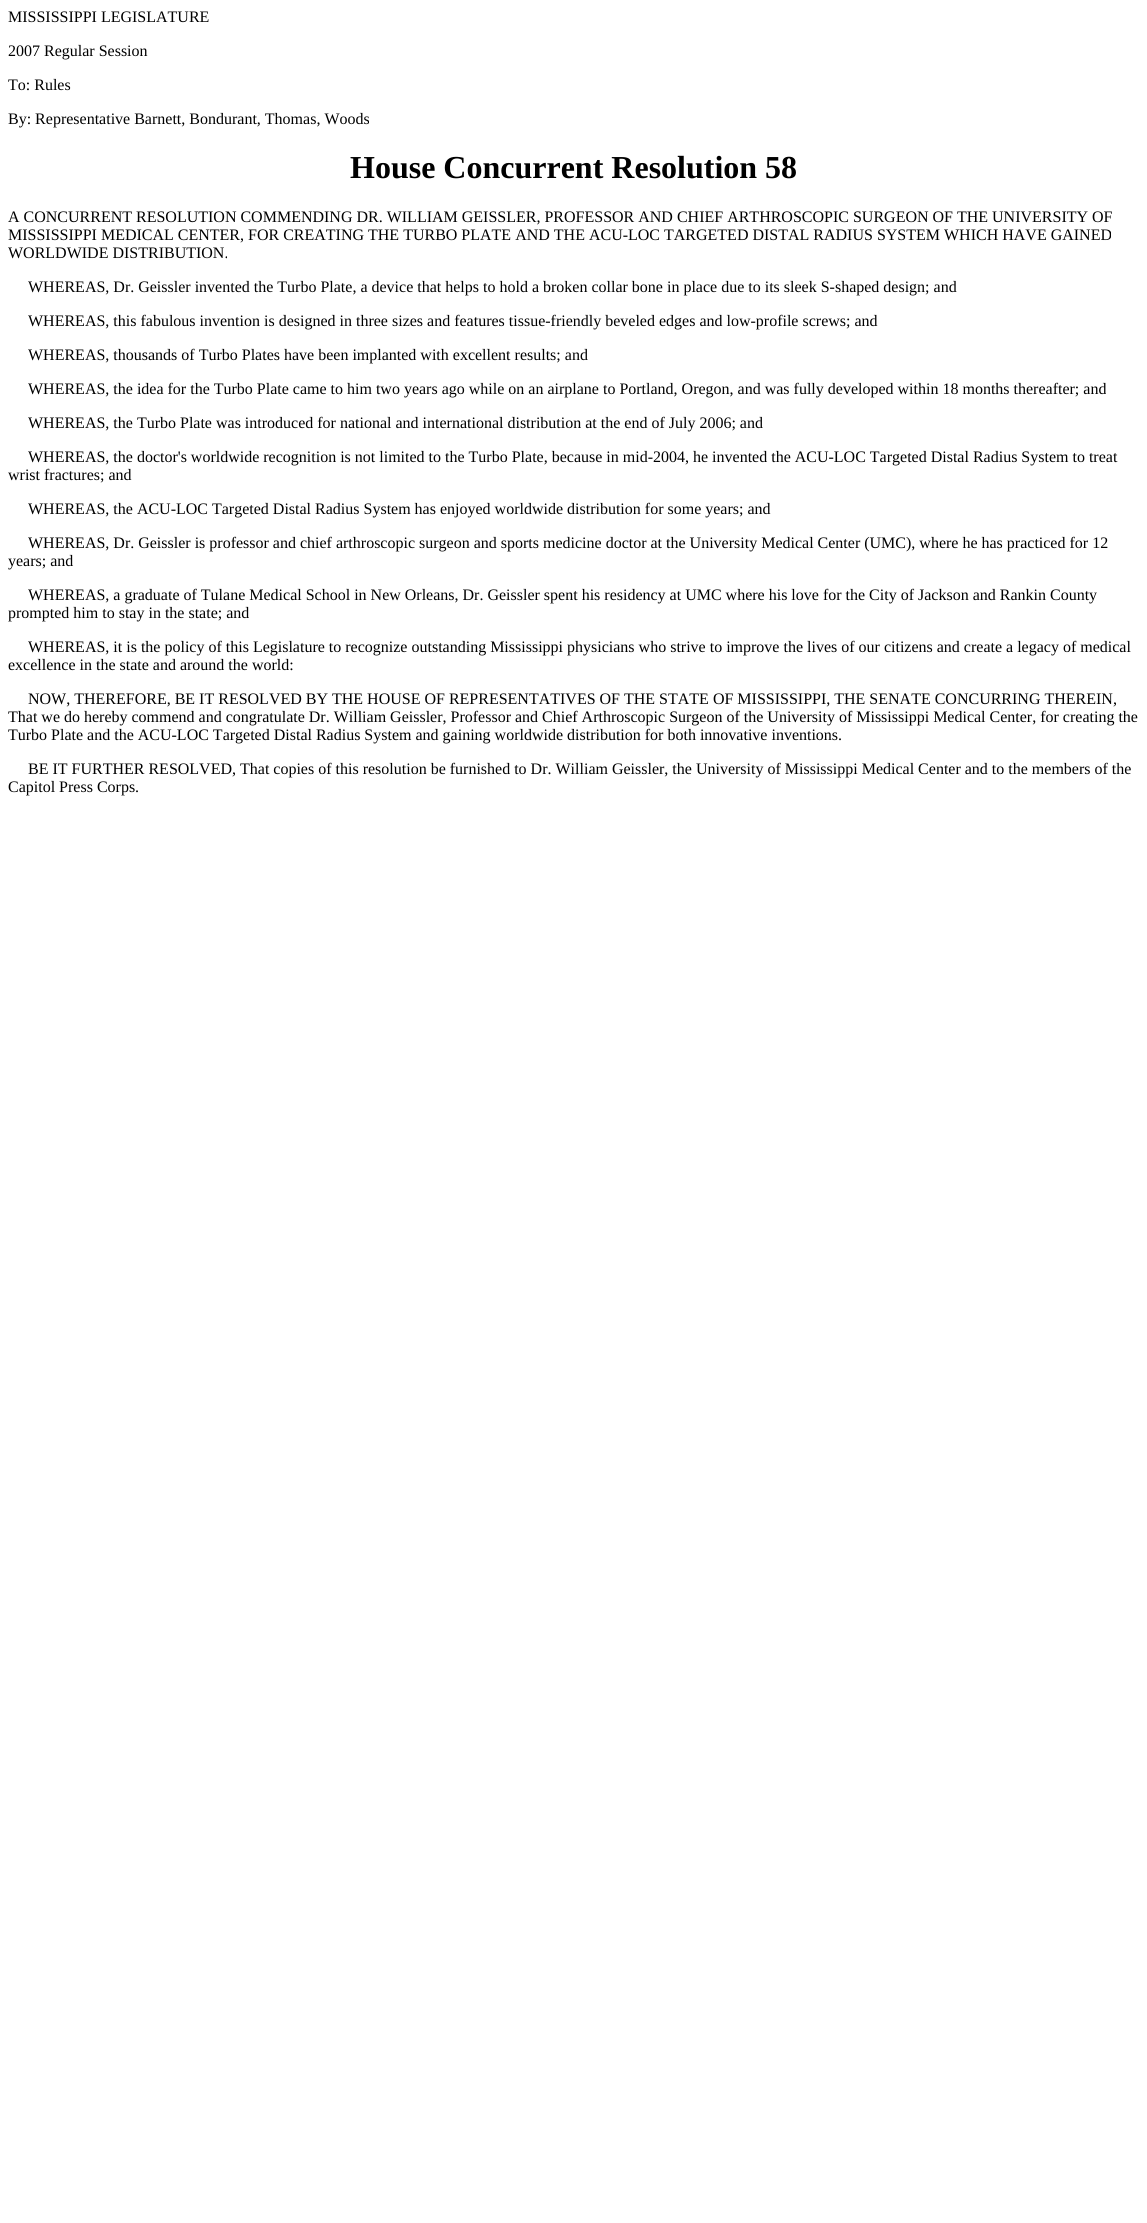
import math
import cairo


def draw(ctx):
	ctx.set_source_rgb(1, 1, 1)
	ctx.paint()
	ctx.select_font_face('Liberation Serif')
	ctx.set_font_size(16)
	ctx.set_source_rgb(0, 0, 0)
	for x, y, s in [
		(8, 22, 'MISSISSIPPI LEGISLATURE'),
		(8, 56, '2007 Regular Session'),
		(8, 90, 'To: Rules'),
		(8, 124, 'By: Representative Barnett, Bondurant, Thomas, Woods'),
	]:
		ctx.move_to(x, y)
		ctx.show_text(s)
	ctx.select_font_face('Liberation Serif', cairo.FONT_SLANT_NORMAL, cairo.FONT_WEIGHT_BOLD)
	ctx.set_font_size(32)
	ctx.move_to(350, 178)
	ctx.show_text('House Concurrent Resolution 58')
	ctx.select_font_face('Liberation Serif')
	ctx.set_font_size(16)
	for x, y, s in [
		(8, 222, 'A CONCURRENT RESOLUTION COMMENDING DR. WILLIAM GEISSLER, PROFESSOR AND CHIEF ARTHROSCOPIC SURGEON OF THE UNIVERSITY OF'),
		(8, 240, 'MISSISSIPPI MEDICAL CENTER, FOR CREATING THE TURBO PLATE AND THE ACU-LOC TARGETED DISTAL RADIUS SYSTEM WHICH HAVE GAINED'),
		(8, 258, 'WORLDWIDE DISTRIBUTION.'),
		(28, 292, 'WHEREAS, Dr. Geissler invented the Turbo Plate, a device that helps to hold a broken collar bone in place due to its sleek S-shaped design; and'),
		(28, 326, 'WHEREAS, this fabulous invention is designed in three sizes and features tissue-friendly beveled edges and low-profile screws; and'),
		(28, 360, 'WHEREAS, thousands of Turbo Plates have been implanted with excellent results; and'),
		(28, 394, 'WHEREAS, the idea for the Turbo Plate came to him two years ago while on an airplane to Portland, Oregon, and was fully developed within 18 months thereafter; and'),
		(28, 428, 'WHEREAS, the Turbo Plate was introduced for national and international distribution at the end of July 2006; and'),
		(28, 462, 'WHEREAS, the doctor\'s worldwide recognition is not limited to the Turbo Plate, because in mid-2004, he invented the ACU-LOC Targeted Distal Radius System to treat'),
		(8, 480, 'wrist fractures; and'),
		(28, 514, 'WHEREAS, the ACU-LOC Targeted Distal Radius System has enjoyed worldwide distribution for some years; and'),
		(28, 548, 'WHEREAS, Dr. Geissler is professor and chief arthroscopic surgeon and sports medicine doctor at the University Medical Center (UMC), where he has practiced for 12'),
		(8, 566, 'years; and'),
		(28, 600, 'WHEREAS, a graduate of Tulane Medical School in New Orleans, Dr. Geissler spent his residency at UMC where his love for the City of Jackson and Rankin County'),
		(8, 618, 'prompted him to stay in the state; and'),
		(28, 652, 'WHEREAS, it is the policy of this Legislature to recognize outstanding Mississippi physicians who strive to improve the lives of our citizens and create a legacy of medical'),
		(8, 670, 'excellence in the state and around the world:'),
		(28, 704, 'NOW, THEREFORE, BE IT RESOLVED BY THE HOUSE OF REPRESENTATIVES OF THE STATE OF MISSISSIPPI, THE SENATE CONCURRING THEREIN,'),
		(8, 722, 'That we do hereby commend and congratulate Dr. William Geissler, Professor and Chief Arthroscopic Surgeon of the University of Mississippi Medical Center, for creating the'),
		(8, 740, 'Turbo Plate and the ACU-LOC Targeted Distal Radius System and gaining worldwide distribution for both innovative inventions.'),
		(28, 774, 'BE IT FURTHER RESOLVED, That copies of this resolution be furnished to Dr. William Geissler, the University of Mississippi Medical Center and to the members of the'),
		(8, 792, 'Capitol Press Corps.'),
	]:
		ctx.move_to(x, y)
		ctx.show_text(s)


surface = cairo.ImageSurface(cairo.FORMAT_RGB24, 1147, 2223)
ctx = cairo.Context(surface)
options = cairo.FontOptions()
options.set_hint_metrics(cairo.HINT_METRICS_OFF)
options.set_hint_style(cairo.HINT_STYLE_NONE)
ctx.set_font_options(options)
ctx.set_miter_limit(4)
draw(ctx)
surface.write_to_png('image.png')
